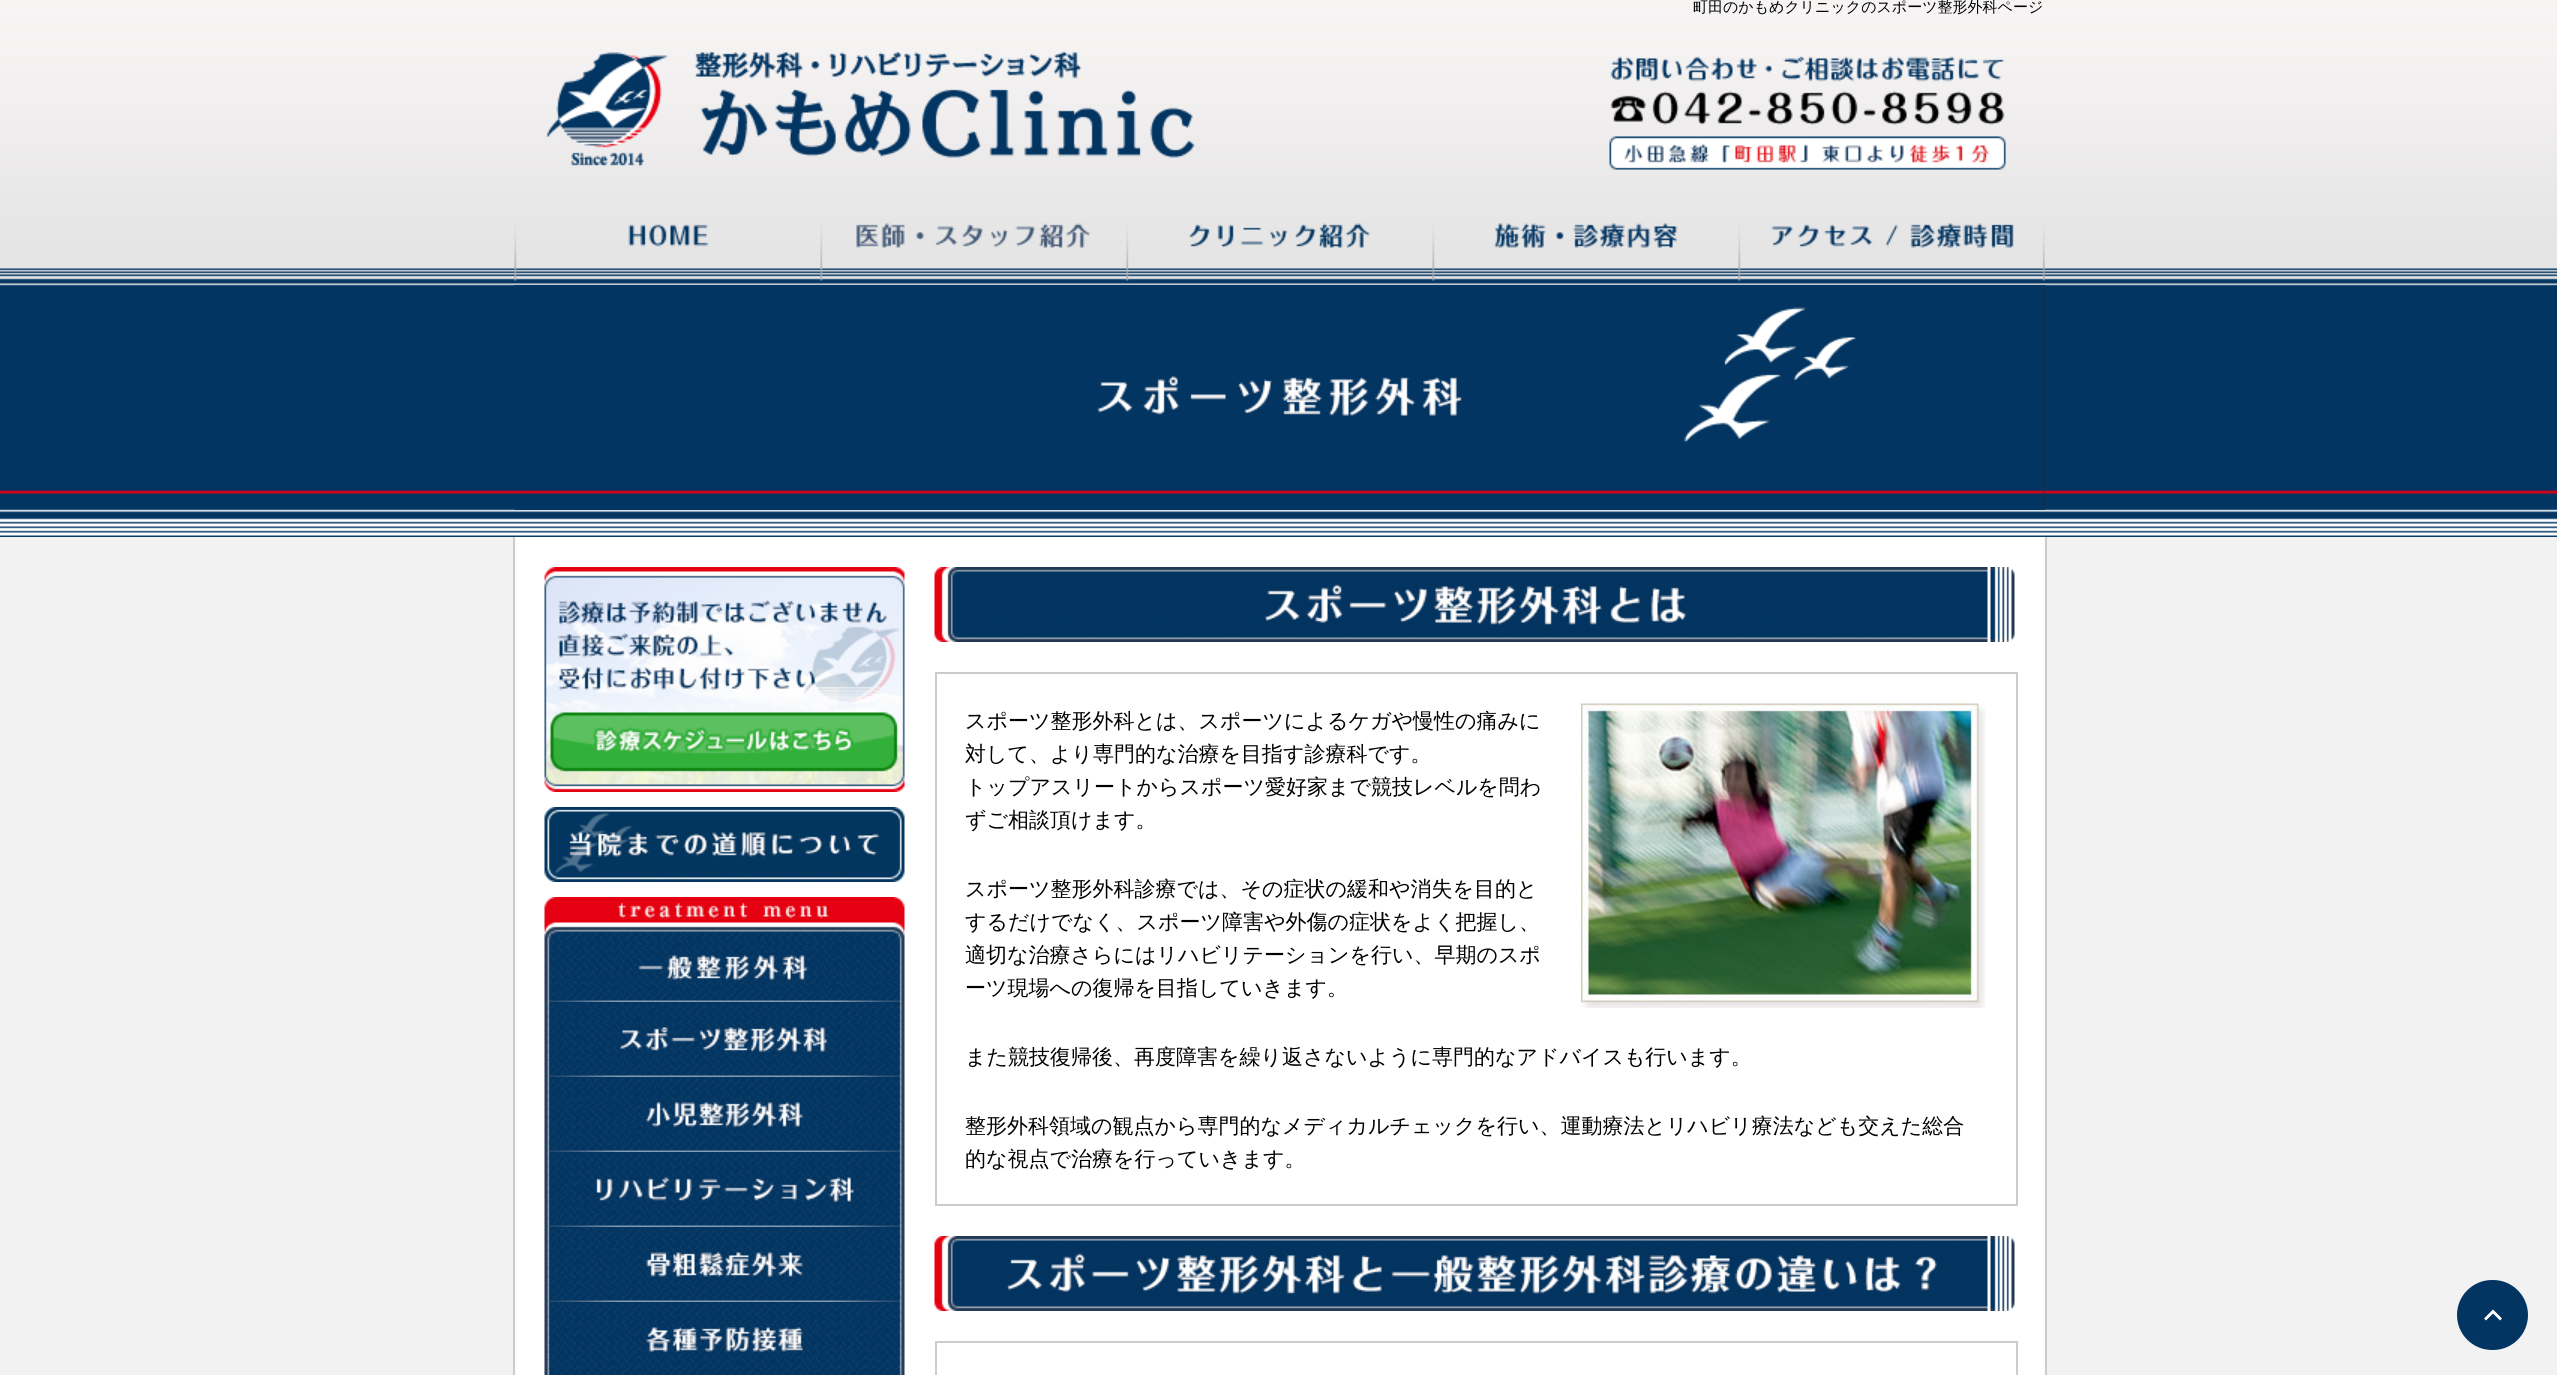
import math
import cairo


def round_path(ctx, x, y, w, h, r):
	ctx.new_sub_path()
	for i, (u, v) in enumerate([(x + w - r, y + h - r), (x + r, y + h - r), (x + r, y + r), (x + w - r, y + r)]):
		ctx.arc(u, v, r, i * math.pi / 2, (i + 1) * math.pi / 2)
	ctx.close_path()

def paste(ctx, path, x, y, w, h):
	ctx.save()
	ctx.set_source_surface(cairo.ImageSurface.create_from_png(path), x, y)
	ctx.rectangle(x, y, w, h)
	ctx.fill()
	ctx.restore()

def draw(ctx):
	ctx.set_source_rgb(0.949, 0.949, 0.949)
	ctx.paint()
	paste(ctx, 'media/1.png', 0, 0, 2557, 537)
	ctx.select_font_face('WenQuanYi Zen Hei Medium')
	ctx.set_font_size(15)
	ctx.set_source_rgb(0, 0, 0)
	ctx.move_to(1693, 12)
	ctx.show_text('町田のかもめクリニックのスポーツ整形外科ページ')
	paste(ctx, 'media/2.png', 1609, 56, 397, 114)
	paste(ctx, 'media/3.png', 546, 51, 649, 116)
	paste(ctx, 'media/4.png', 514, 224, 195, 57)
	paste(ctx, 'media/5.png', 820, 223, 271, 58)
	paste(ctx, 'media/6.png', 1126, 223, 244, 58)
	paste(ctx, 'media/7.png', 1432, 223, 246, 58)
	paste(ctx, 'media/8.png', 1738, 223, 307, 58)
	ctx.set_source_rgb(0.008, 0.208, 0.384)
	round_path(ctx, 2457, 1280, 71, 70, 35)
	ctx.fill()
	ctx.set_source_rgb(1, 1, 1)
	ctx.new_path()
	ctx.move_to(2486, 1320.5)
	ctx.line_to(2484, 1318.5)
	ctx.line_to(2493, 1309.5)
	ctx.line_to(2502, 1318.5)
	ctx.line_to(2500, 1320.5)
	ctx.line_to(2493, 1313.5)
	ctx.close_path()
	ctx.fill()
	ctx.set_source_rgb(0.086, 0.161, 0.239)
	ctx.rectangle(2044, 285, 1, 225)
	ctx.fill()
	paste(ctx, 'media/9.png', 514, 285, 1531, 225)
	ctx.set_source_rgb(1, 1, 1)
	ctx.rectangle(515, 537, 1530, 838)
	ctx.fill()
	ctx.set_source_rgb(0.8, 0.8, 0.8)
	ctx.rectangle(2045, 537, 2, 838)
	ctx.rectangle(513, 537, 2, 838)
	ctx.fill()
	paste(ctx, 'media/10.png', 544, 567, 361, 225)
	paste(ctx, 'media/11.png', 544, 807, 361, 75)
	paste(ctx, 'media/12.png', 544, 897, 361, 105)
	paste(ctx, 'media/13.png', 544, 1002, 361, 75)
	paste(ctx, 'media/14.png', 544, 1077, 361, 75)
	paste(ctx, 'media/15.png', 544, 1152, 361, 75)
	paste(ctx, 'media/16.png', 544, 1227, 361, 75)
	paste(ctx, 'media/17.png', 544, 1302, 361, 73)
	paste(ctx, 'media/18.png', 934, 567, 1081, 75)
	ctx.rectangle(936, 673, 1081, 532)
	ctx.stroke()
	ctx.set_font_size(21)
	ctx.set_source_rgb(0, 0, 0)
	for x, y, s in [
		(965, 728, 'スポーツ整形外科とは、スポーツによるケガや慢性の痛みに'),
		(965, 761, '対して、より専門的な治療を目指す診療科です。'),
		(965, 794, 'トップアスリートからスポーツ愛好家まで競技レベルを問わ'),
		(965, 827, 'ずご相談頂けます。'),
	]:
		ctx.move_to(x, y)
		ctx.show_text(s)
	paste(ctx, 'media/19.png', 1581, 703, 405, 305)
	for x, y, s in [
		(965, 896, 'スポーツ整形外科診療では、その症状の緩和や消失を目的と'),
		(965, 929, 'するだけでなく、スポーツ障害や外傷の症状をよく把握し、'),
		(965, 962, '適切な治療さらにはリハビリテーションを行い、早期のスポ'),
		(965, 995, 'ーツ現場への復帰を目指していきます。'),
		(965, 1064, 'また競技復帰後、再度障害を繰り返さないように専門的なアドバイスも行います。'),
		(965, 1133, '整形外科領域の観点から専門的なメディカルチェックを行い、運動療法とリハビリ療法なども交えた総合'),
		(965, 1166, '的な視点で治療を行っていきます。'),
	]:
		ctx.move_to(x, y)
		ctx.show_text(s)
	paste(ctx, 'media/20.png', 934, 1236, 1081, 75)
	ctx.rectangle(936, 1342, 1081, 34)
	ctx.set_source_rgb(0.8, 0.8, 0.8)
	ctx.stroke()


surface = cairo.ImageSurface(cairo.FORMAT_RGB24, 2557, 1375)
ctx = cairo.Context(surface)
options = cairo.FontOptions()
options.set_hint_metrics(cairo.HINT_METRICS_OFF)
options.set_hint_style(cairo.HINT_STYLE_NONE)
ctx.set_font_options(options)
ctx.set_miter_limit(4)
draw(ctx)
surface.write_to_png('image.png')
